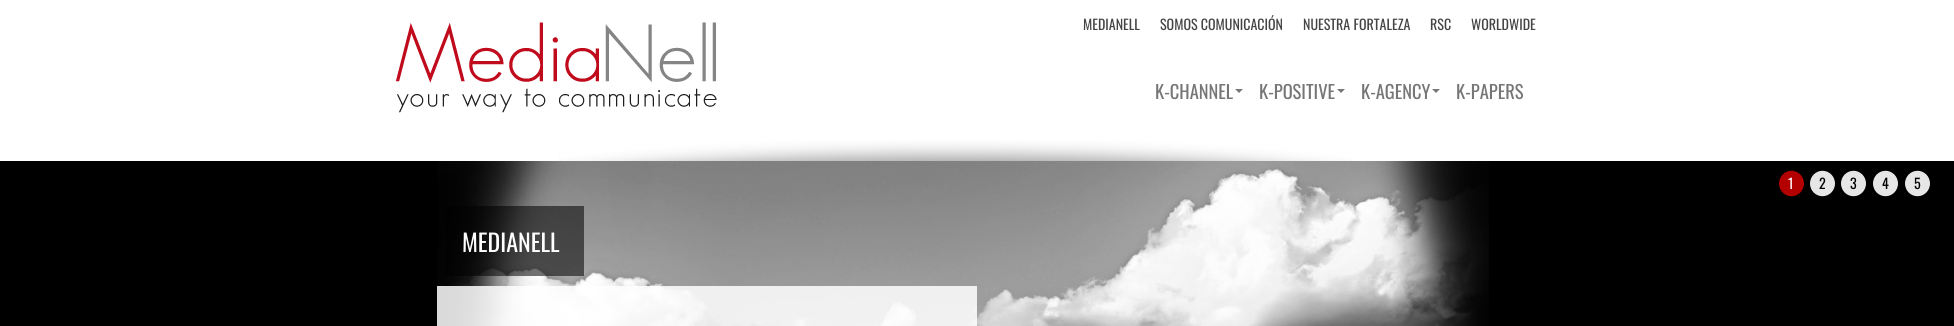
import math
import cairo


def paste(ctx, path, x, y, w, h):
	ctx.save()
	ctx.set_source_surface(cairo.ImageSurface.create_from_png(path), x, y)
	ctx.rectangle(x, y, w, h)
	ctx.fill()
	ctx.restore()

def draw(ctx):
	ctx.set_source_rgb(1, 1, 1)
	ctx.paint()
	paste(ctx, 'media/1.png', 396, 22, 321, 91)
	ctx.select_font_face('Oswald')
	ctx.set_font_size(14)
	ctx.set_source_rgb(0.267, 0.267, 0.267)
	for x, y, s in [
		(1083, 30, 'MEDIANELL'),
		(1160, 30, 'SOMOS COMUNICACIÓN'),
		(1303, 30, 'NUESTRA FORTALEZA'),
		(1430, 30, 'RSC'),
		(1471, 30, 'WORLDWIDE'),
	]:
		ctx.move_to(x, y)
		ctx.show_text(s)
	ctx.set_font_size(18.5)
	ctx.set_source_rgb(0.463, 0.463, 0.463)
	ctx.move_to(1155, 99)
	ctx.show_text('K-CHANNEL')
	ctx.set_source_rgb(0.467, 0.467, 0.467)
	ctx.new_path()
	ctx.move_to(1235, 89)
	ctx.line_to(1243, 89)
	ctx.line_to(1239, 93)
	ctx.close_path()
	ctx.fill()
	ctx.set_source_rgb(0.463, 0.463, 0.463)
	ctx.move_to(1259, 99)
	ctx.show_text('K-POSITIVE')
	ctx.set_source_rgb(0.467, 0.467, 0.467)
	ctx.new_path()
	ctx.move_to(1337, 89)
	ctx.line_to(1345, 89)
	ctx.line_to(1341, 93)
	ctx.close_path()
	ctx.fill()
	ctx.set_source_rgb(0.463, 0.463, 0.463)
	ctx.move_to(1361, 99)
	ctx.show_text('K-AGENCY')
	ctx.set_source_rgb(0.467, 0.467, 0.467)
	ctx.new_path()
	ctx.move_to(1432, 89)
	ctx.line_to(1440, 89)
	ctx.line_to(1436, 93)
	ctx.close_path()
	ctx.fill()
	ctx.set_source_rgb(0.463, 0.463, 0.463)
	ctx.move_to(1456, 99)
	ctx.show_text('K-PAPERS')
	paste(ctx, 'media/2.png', 558, 140, 795, 21)
	ctx.set_source_rgb(0, 0, 0)
	ctx.rectangle(0, 161, 1954, 165)
	ctx.fill()
	paste(ctx, 'media/3.png', 1779, 170, 25, 27)
	paste(ctx, 'media/4.png', 1810, 170, 25, 27)
	paste(ctx, 'media/4.png', 1841, 170, 25, 27)
	paste(ctx, 'media/4.png', 1873, 170, 25, 27)
	paste(ctx, 'media/4.png', 1905, 170, 25, 27)
	ctx.set_font_size(14)
	ctx.set_source_rgb(1, 1, 1)
	ctx.move_to(1788, 189)
	ctx.show_text('1')
	ctx.set_source_rgb(0, 0, 0)
	for x, y, s in [
		(1819, 189, '2'),
		(1850, 189, '3'),
		(1882, 189, '4'),
		(1914, 189, '5'),
	]:
		ctx.move_to(x, y)
		ctx.show_text(s)
	paste(ctx, 'media/5.png', 437, 161, 1052, 165)
	ctx.set_source_rgba(0, 0, 0, 0.55)
	ctx.rectangle(445, 206, 139, 70)
	ctx.fill()
	ctx.set_font_size(24)
	ctx.set_source_rgb(1, 1, 1)
	ctx.move_to(462, 252)
	ctx.show_text('MEDIANELL')
	ctx.set_source_rgba(1, 1, 1, 0.85)
	ctx.rectangle(437, 286, 540, 40)
	ctx.fill()


surface = cairo.ImageSurface(cairo.FORMAT_RGB24, 1954, 326)
ctx = cairo.Context(surface)
options = cairo.FontOptions()
options.set_hint_metrics(cairo.HINT_METRICS_OFF)
options.set_hint_style(cairo.HINT_STYLE_NONE)
ctx.set_font_options(options)
ctx.set_miter_limit(4)
draw(ctx)
surface.write_to_png('image.png')
